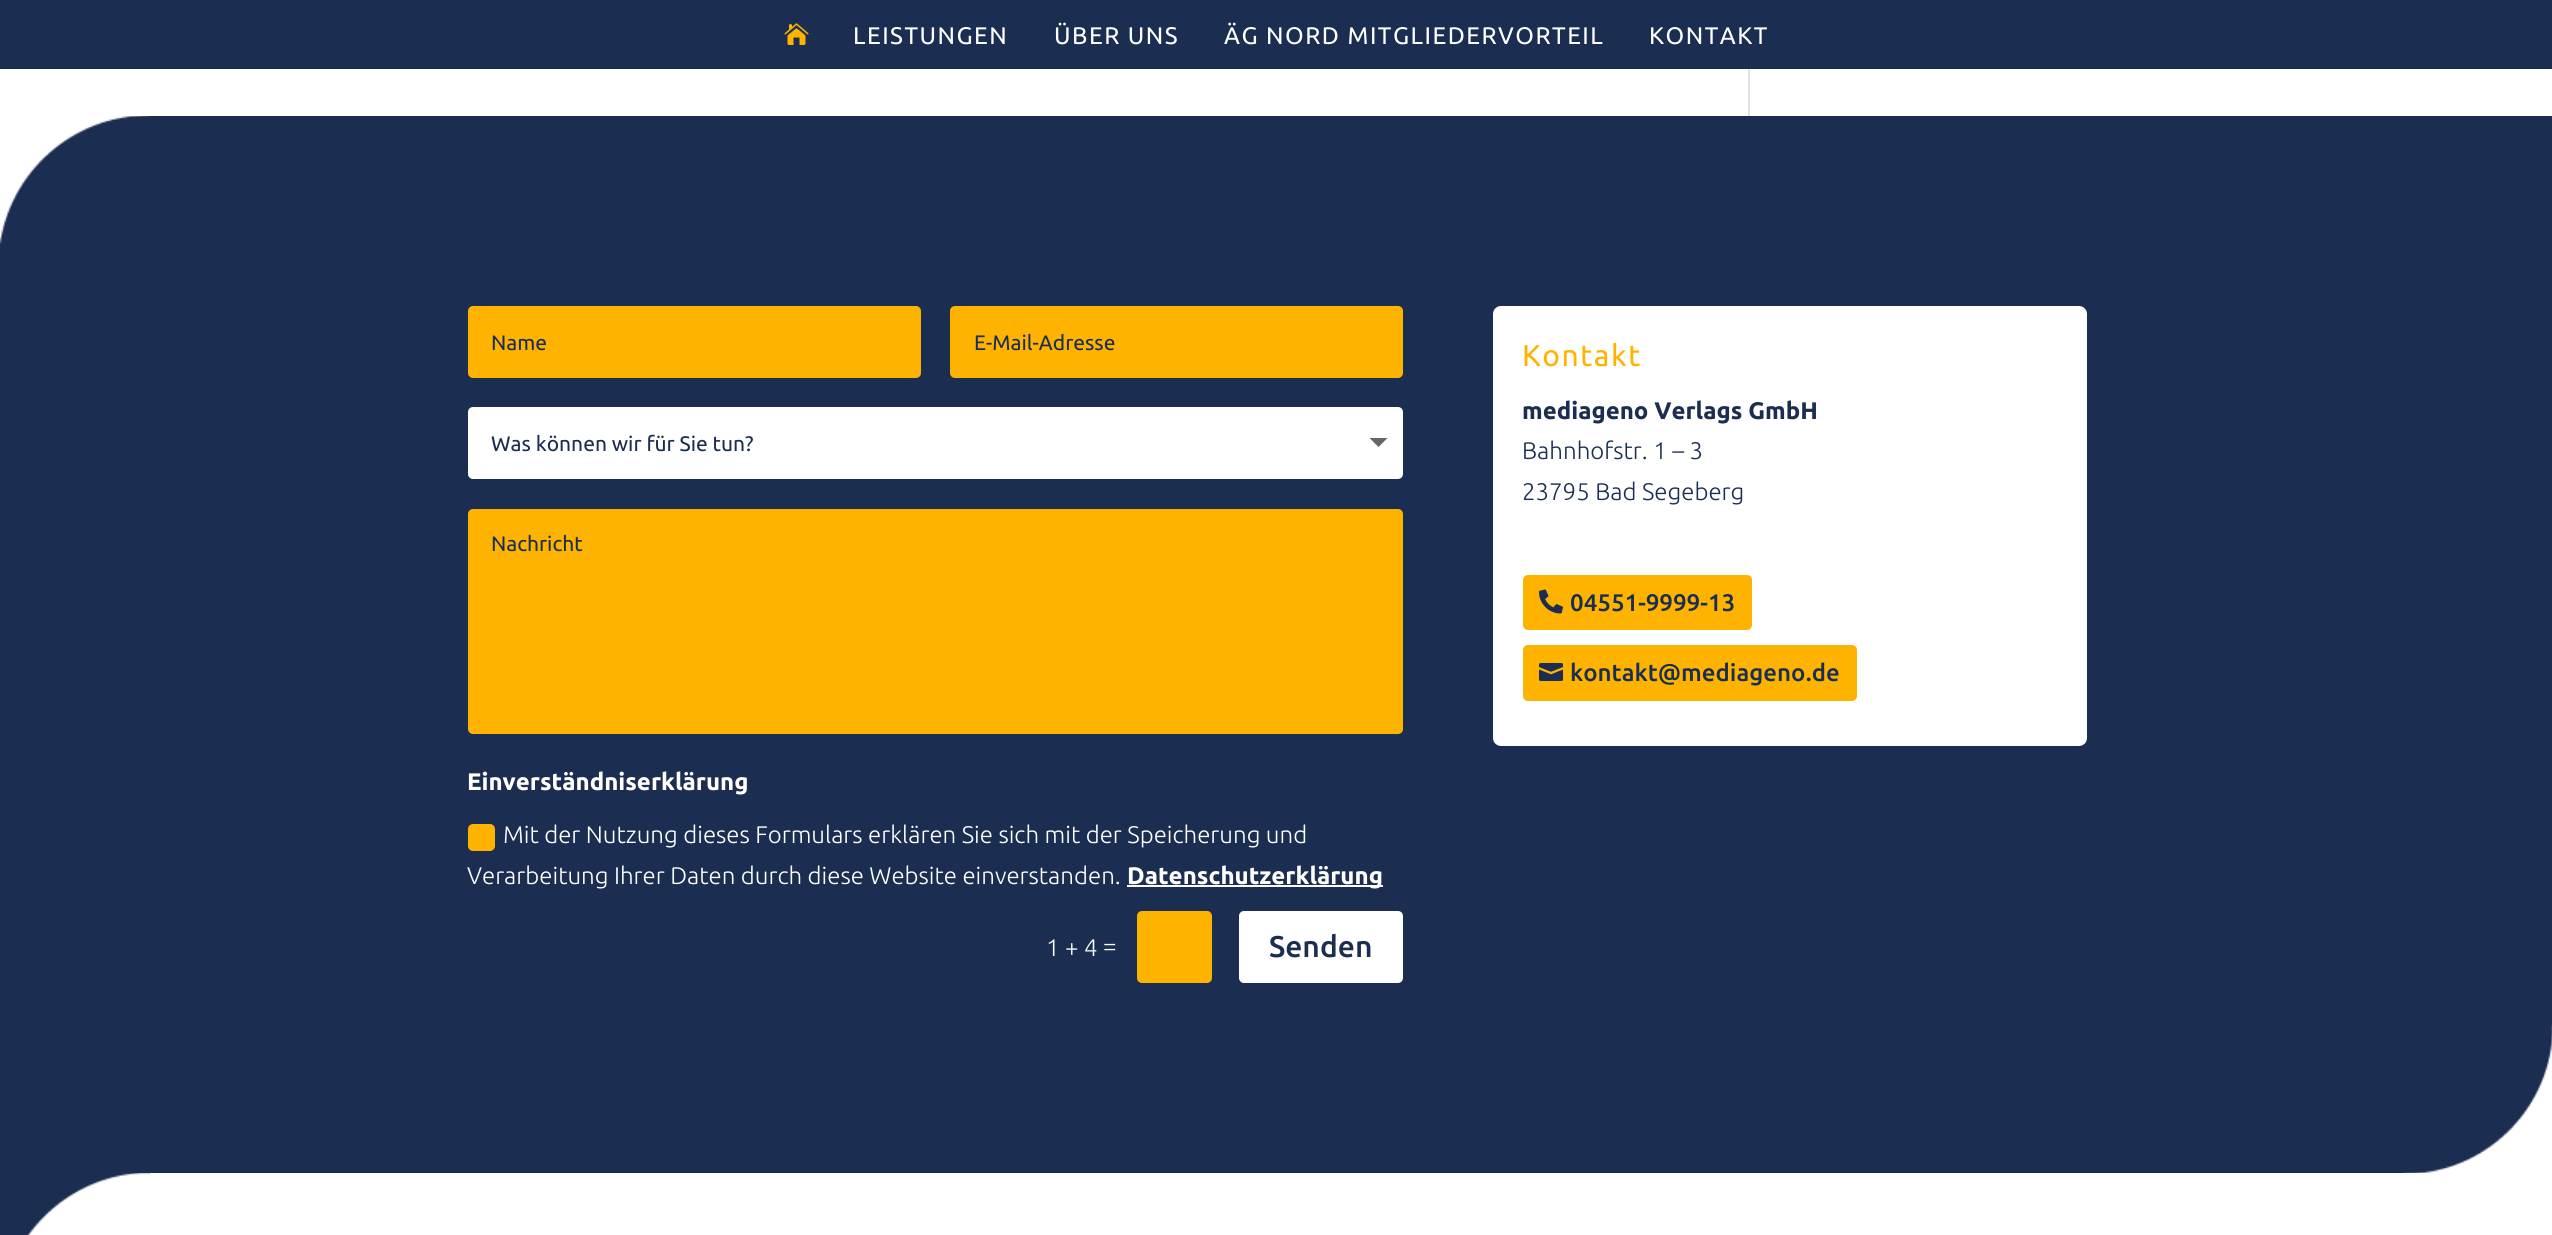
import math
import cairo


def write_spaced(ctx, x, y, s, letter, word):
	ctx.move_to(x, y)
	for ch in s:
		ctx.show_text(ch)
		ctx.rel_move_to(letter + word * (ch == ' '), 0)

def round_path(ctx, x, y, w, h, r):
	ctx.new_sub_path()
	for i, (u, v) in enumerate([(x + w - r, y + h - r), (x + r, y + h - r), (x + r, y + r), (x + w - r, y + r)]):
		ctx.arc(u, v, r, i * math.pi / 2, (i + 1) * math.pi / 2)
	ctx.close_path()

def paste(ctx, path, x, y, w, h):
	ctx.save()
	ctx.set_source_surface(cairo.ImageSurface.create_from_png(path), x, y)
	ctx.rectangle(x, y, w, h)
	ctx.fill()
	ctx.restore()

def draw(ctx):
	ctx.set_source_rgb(1, 1, 1)
	ctx.paint()
	ctx.set_source_rgb(0.106, 0.18, 0.318)
	ctx.rectangle(0, 0, 2552, 69)
	ctx.fill()
	paste(ctx, 'media/1.png', 784, 23, 25, 22)
	ctx.select_font_face('Ubuntu')
	ctx.set_font_size(24)
	ctx.set_source_rgb(1, 1, 1)
	for x, y, s in [
		(853, 44, 'LEISTUNGEN'),
		(1054, 44, 'ÜBER UNS'),
		(1224, 44, 'ÄG NORD MITGLIEDERVORTEIL'),
		(1649, 44, 'KONTAKT'),
	]:
		write_spaced(ctx, x, y, s, 1.5, 0)
	ctx.set_source_rgb(0.886, 0.886, 0.886)
	ctx.rectangle(1748, 69, 2, 47)
	ctx.fill()
	ctx.set_source_rgb(0.106, 0.18, 0.318)
	ctx.rectangle(0, 116, 2552, 1057)
	ctx.fill()
	paste(ctx, 'media/2.png', 0, 116, 149, 129)
	ctx.set_source_rgb(1, 0.702, 0.004)
	round_path(ctx, 468, 306, 453, 72, 5)
	ctx.fill()
	ctx.set_font_size(21)
	ctx.set_source_rgb(0.106, 0.18, 0.318)
	ctx.move_to(491, 350)
	ctx.show_text('Name')
	ctx.set_source_rgb(1, 0.702, 0.004)
	round_path(ctx, 950, 306, 453, 72, 5)
	ctx.fill()
	ctx.set_source_rgb(0.106, 0.18, 0.318)
	ctx.move_to(974, 350)
	ctx.show_text('E-Mail-Adresse')
	ctx.set_source_rgb(1, 1, 1)
	round_path(ctx, 468, 407, 935, 72, 5)
	ctx.fill()
	ctx.set_source_rgb(0.106, 0.18, 0.318)
	ctx.move_to(491, 451)
	ctx.show_text('Was können wir für Sie tun?')
	ctx.set_source_rgb(0.4, 0.4, 0.4)
	ctx.new_path()
	ctx.move_to(1369.5, 438)
	ctx.line_to(1387.5, 438)
	ctx.line_to(1378.5, 447)
	ctx.close_path()
	ctx.fill()
	ctx.set_source_rgb(1, 0.702, 0.004)
	round_path(ctx, 468, 509, 935, 225, 5)
	ctx.fill()
	ctx.set_source_rgb(0.106, 0.18, 0.318)
	ctx.move_to(491, 551)
	ctx.show_text('Nachricht')
	ctx.select_font_face('Ubuntu', cairo.FONT_SLANT_NORMAL, cairo.FONT_WEIGHT_BOLD)
	ctx.set_font_size(24)
	ctx.set_source_rgb(1, 1, 1)
	ctx.move_to(467, 790)
	ctx.show_text('Einverständniserklärung')
	ctx.set_source_rgb(1, 0.702, 0.004)
	round_path(ctx, 468, 824, 27, 27, 5)
	ctx.fill()
	ctx.select_font_face('Ubuntu Light')
	ctx.set_source_rgb(1, 1, 1)
	ctx.move_to(503, 843)
	ctx.show_text('Mit der Nutzung dieses Formulars erklären Sie sich mit der Speicherung und')
	ctx.move_to(467, 884)
	ctx.show_text('Verarbeitung Ihrer Daten durch diese Website einverstanden.')
	ctx.rectangle(1127, 885, 256, 2)
	ctx.fill()
	ctx.select_font_face('Ubuntu', cairo.FONT_SLANT_NORMAL, cairo.FONT_WEIGHT_BOLD)
	ctx.move_to(1127, 884)
	ctx.show_text('Datenschutzerklärung')
	ctx.select_font_face('Ubuntu Light')
	ctx.move_to(1046, 956)
	ctx.show_text('1 + 4')
	ctx.move_to(1103, 954)
	ctx.show_text('=')
	ctx.set_source_rgb(1, 0.702, 0.004)
	round_path(ctx, 1137, 911, 75, 72, 5)
	ctx.fill()
	ctx.set_source_rgb(1, 1, 1)
	round_path(ctx, 1239, 911, 164, 72, 5)
	ctx.fill()
	ctx.select_font_face('Ubuntu Medium')
	ctx.set_font_size(30)
	ctx.set_source_rgb(0.106, 0.18, 0.318)
	ctx.move_to(1269, 957)
	ctx.show_text('Senden')
	ctx.set_source_rgb(1, 1, 1)
	round_path(ctx, 1493, 306, 594, 440, 8)
	ctx.fill()
	ctx.select_font_face('Ubuntu')
	ctx.set_source_rgb(1, 0.702, 0.004)
	write_spaced(ctx, 1522, 366, 'Kontakt', 1.5, 0)
	ctx.select_font_face('Ubuntu', cairo.FONT_SLANT_NORMAL, cairo.FONT_WEIGHT_BOLD)
	ctx.set_font_size(24)
	ctx.set_source_rgb(0.106, 0.18, 0.318)
	ctx.move_to(1522, 419)
	ctx.show_text('mediageno Verlags GmbH')
	ctx.select_font_face('Ubuntu Light')
	ctx.move_to(1522, 459)
	ctx.show_text('Bahnhofstr. 1 – 3')
	ctx.move_to(1522, 500)
	ctx.show_text('23795 Bad Segeberg')
	ctx.set_source_rgb(1, 0.702, 0.004)
	round_path(ctx, 1523, 575, 229, 55, 5)
	ctx.fill()
	paste(ctx, 'media/3.png', 1539, 589, 24, 25)
	ctx.select_font_face('Ubuntu Medium')
	ctx.set_source_rgb(0.106, 0.18, 0.318)
	ctx.move_to(1570, 611)
	ctx.show_text('04551-9999-13')
	ctx.set_source_rgb(1, 0.702, 0.004)
	round_path(ctx, 1523, 645, 334, 56, 5)
	ctx.fill()
	paste(ctx, 'media/4.png', 1539, 663, 24, 18)
	ctx.set_source_rgb(0.106, 0.18, 0.318)
	ctx.move_to(1570, 681)
	ctx.show_text('kontakt@mediageno.de')
	paste(ctx, 'media/5.png', 2403, 1025, 149, 148)
	paste(ctx, 'media/6.png', 0, 1173, 150, 62)


surface = cairo.ImageSurface(cairo.FORMAT_RGB24, 2552, 1235)
ctx = cairo.Context(surface)
options = cairo.FontOptions()
options.set_hint_metrics(cairo.HINT_METRICS_OFF)
options.set_hint_style(cairo.HINT_STYLE_NONE)
ctx.set_font_options(options)
ctx.set_miter_limit(4)
draw(ctx)
surface.write_to_png('image.png')
